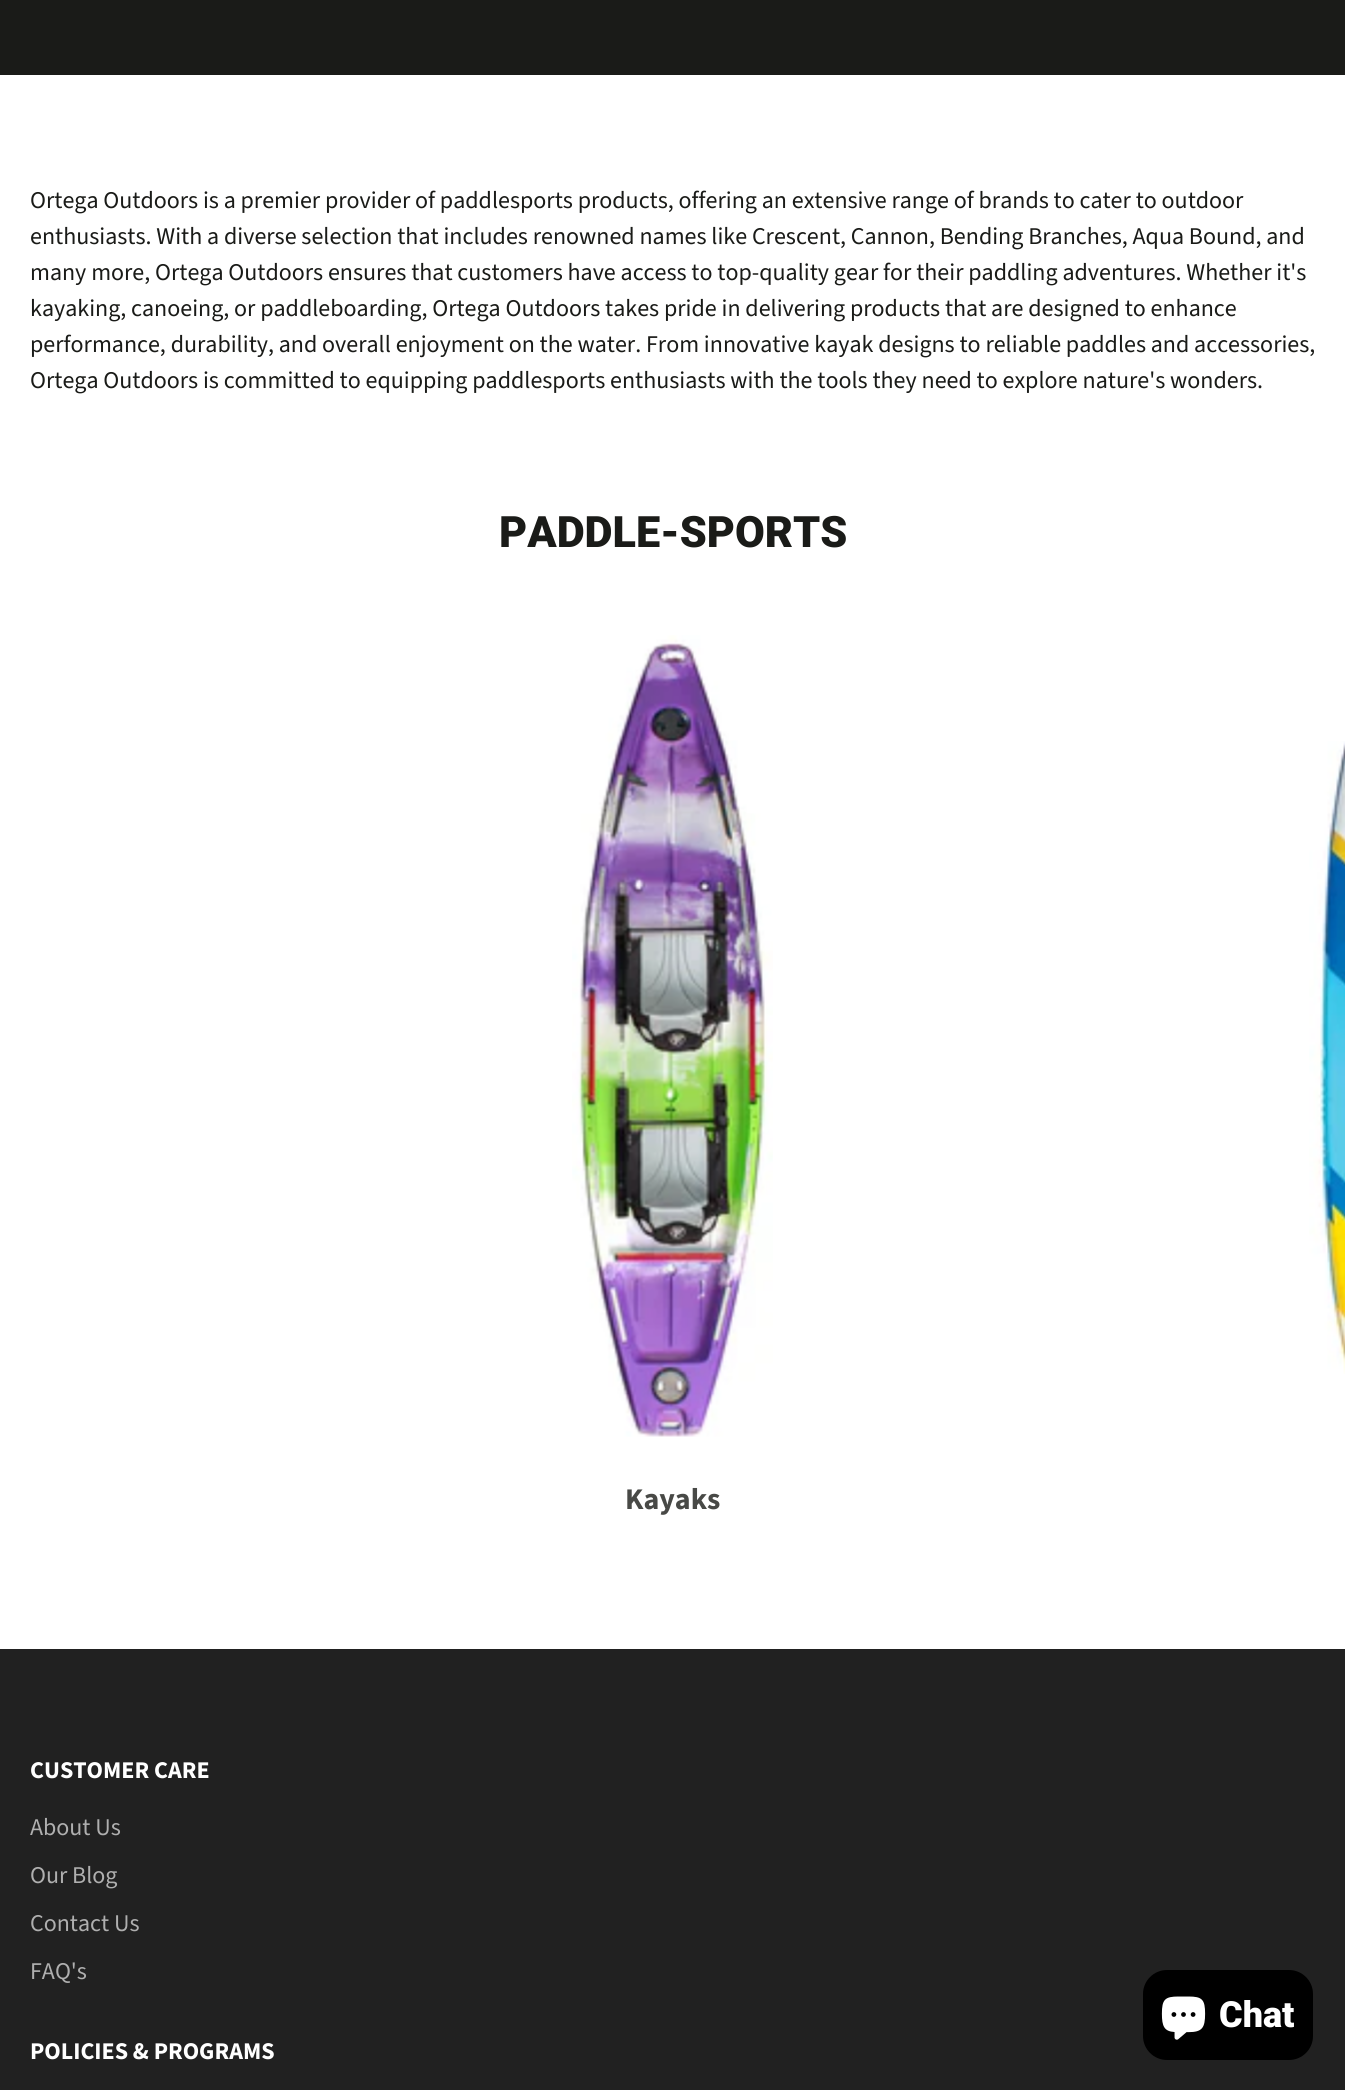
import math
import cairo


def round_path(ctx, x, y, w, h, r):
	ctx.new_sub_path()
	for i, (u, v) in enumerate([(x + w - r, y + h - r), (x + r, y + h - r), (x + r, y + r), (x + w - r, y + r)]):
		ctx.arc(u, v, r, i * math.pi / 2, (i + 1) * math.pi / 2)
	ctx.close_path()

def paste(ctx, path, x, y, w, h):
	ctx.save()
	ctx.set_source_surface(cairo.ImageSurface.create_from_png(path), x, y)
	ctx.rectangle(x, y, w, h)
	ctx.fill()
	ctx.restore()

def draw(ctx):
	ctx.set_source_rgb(1, 1, 1)
	ctx.paint()
	ctx.set_source_rgb(0.102, 0.106, 0.094)
	ctx.rectangle(0, 0, 1345, 75)
	ctx.fill()
	ctx.select_font_face('Source Sans Pro')
	ctx.set_font_size(24)
	for x, y, s in [
		(30, 208, 'Ortega Outdoors is a premier provider of paddlesports products, offering an extensive range of brands to cater to outdoor'),
		(30, 244, 'enthusiasts. With a diverse selection that includes renowned names like Crescent, Cannon, Bending Branches, Aqua Bound, and'),
		(30, 280, 'many more, Ortega Outdoors ensures that customers have access to top-quality gear for their paddling adventures. Whether it\'s'),
		(30, 316, 'kayaking, canoeing, or paddleboarding, Ortega Outdoors takes pride in delivering products that are designed to enhance'),
		(30, 352, 'performance, durability, and overall enjoyment on the water. From innovative kayak designs to reliable paddles and accessories,'),
		(30, 388, 'Ortega Outdoors is committed to equipping paddlesports enthusiasts with the tools they need to explore nature\'s wonders.'),
	]:
		ctx.move_to(x, y)
		ctx.show_text(s)
	ctx.select_font_face('Roboto Black')
	ctx.set_font_size(43.25)
	ctx.move_to(499, 547)
	ctx.show_text('PADDLE-SPORTS')
	paste(ctx, 'media/1.png', 1309, 741, 36, 633)
	paste(ctx, 'media/2.png', 572, 635, 201, 802)
	ctx.select_font_face('Source Sans Pro', cairo.FONT_SLANT_NORMAL, cairo.FONT_WEIGHT_BOLD)
	ctx.set_font_size(30)
	ctx.set_source_rgb(0.282, 0.286, 0.275)
	ctx.move_to(625, 1509)
	ctx.show_text('Kayaks')
	ctx.set_source_rgb(0.129, 0.129, 0.129)
	ctx.rectangle(0, 1649, 1345, 441)
	ctx.fill()
	ctx.set_font_size(24)
	ctx.set_source_rgb(1, 1, 1)
	ctx.move_to(30, 1778)
	ctx.show_text('CUSTOMER CARE')
	ctx.select_font_face('Source Sans Pro')
	ctx.set_source_rgb(0.686, 0.686, 0.686)
	for x, y, s in [
		(30, 1835, 'About Us'),
		(30, 1883, 'Our Blog'),
		(30, 1931, 'Contact Us'),
		(30, 1979, 'FAQ\'s'),
	]:
		ctx.move_to(x, y)
		ctx.show_text(s)
	ctx.select_font_face('Source Sans Pro', cairo.FONT_SLANT_NORMAL, cairo.FONT_WEIGHT_BOLD)
	ctx.set_source_rgb(1, 1, 1)
	ctx.move_to(30, 2059)
	ctx.show_text('POLICIES & PROGRAMS')
	ctx.set_source_rgb(0, 0, 0)
	round_path(ctx, 1143, 1970, 170, 90, 24)
	ctx.fill()
	paste(ctx, 'media/3.png', 1161, 1996, 45, 44)
	ctx.select_font_face('Roboto Black')
	ctx.set_font_size(36)
	ctx.set_source_rgb(1, 1, 1)
	ctx.move_to(1219, 2027)
	ctx.show_text('Chat')


surface = cairo.ImageSurface(cairo.FORMAT_RGB24, 1345, 2090)
ctx = cairo.Context(surface)
options = cairo.FontOptions()
options.set_hint_metrics(cairo.HINT_METRICS_OFF)
options.set_hint_style(cairo.HINT_STYLE_NONE)
ctx.set_font_options(options)
ctx.set_miter_limit(4)
draw(ctx)
surface.write_to_png('image.png')
